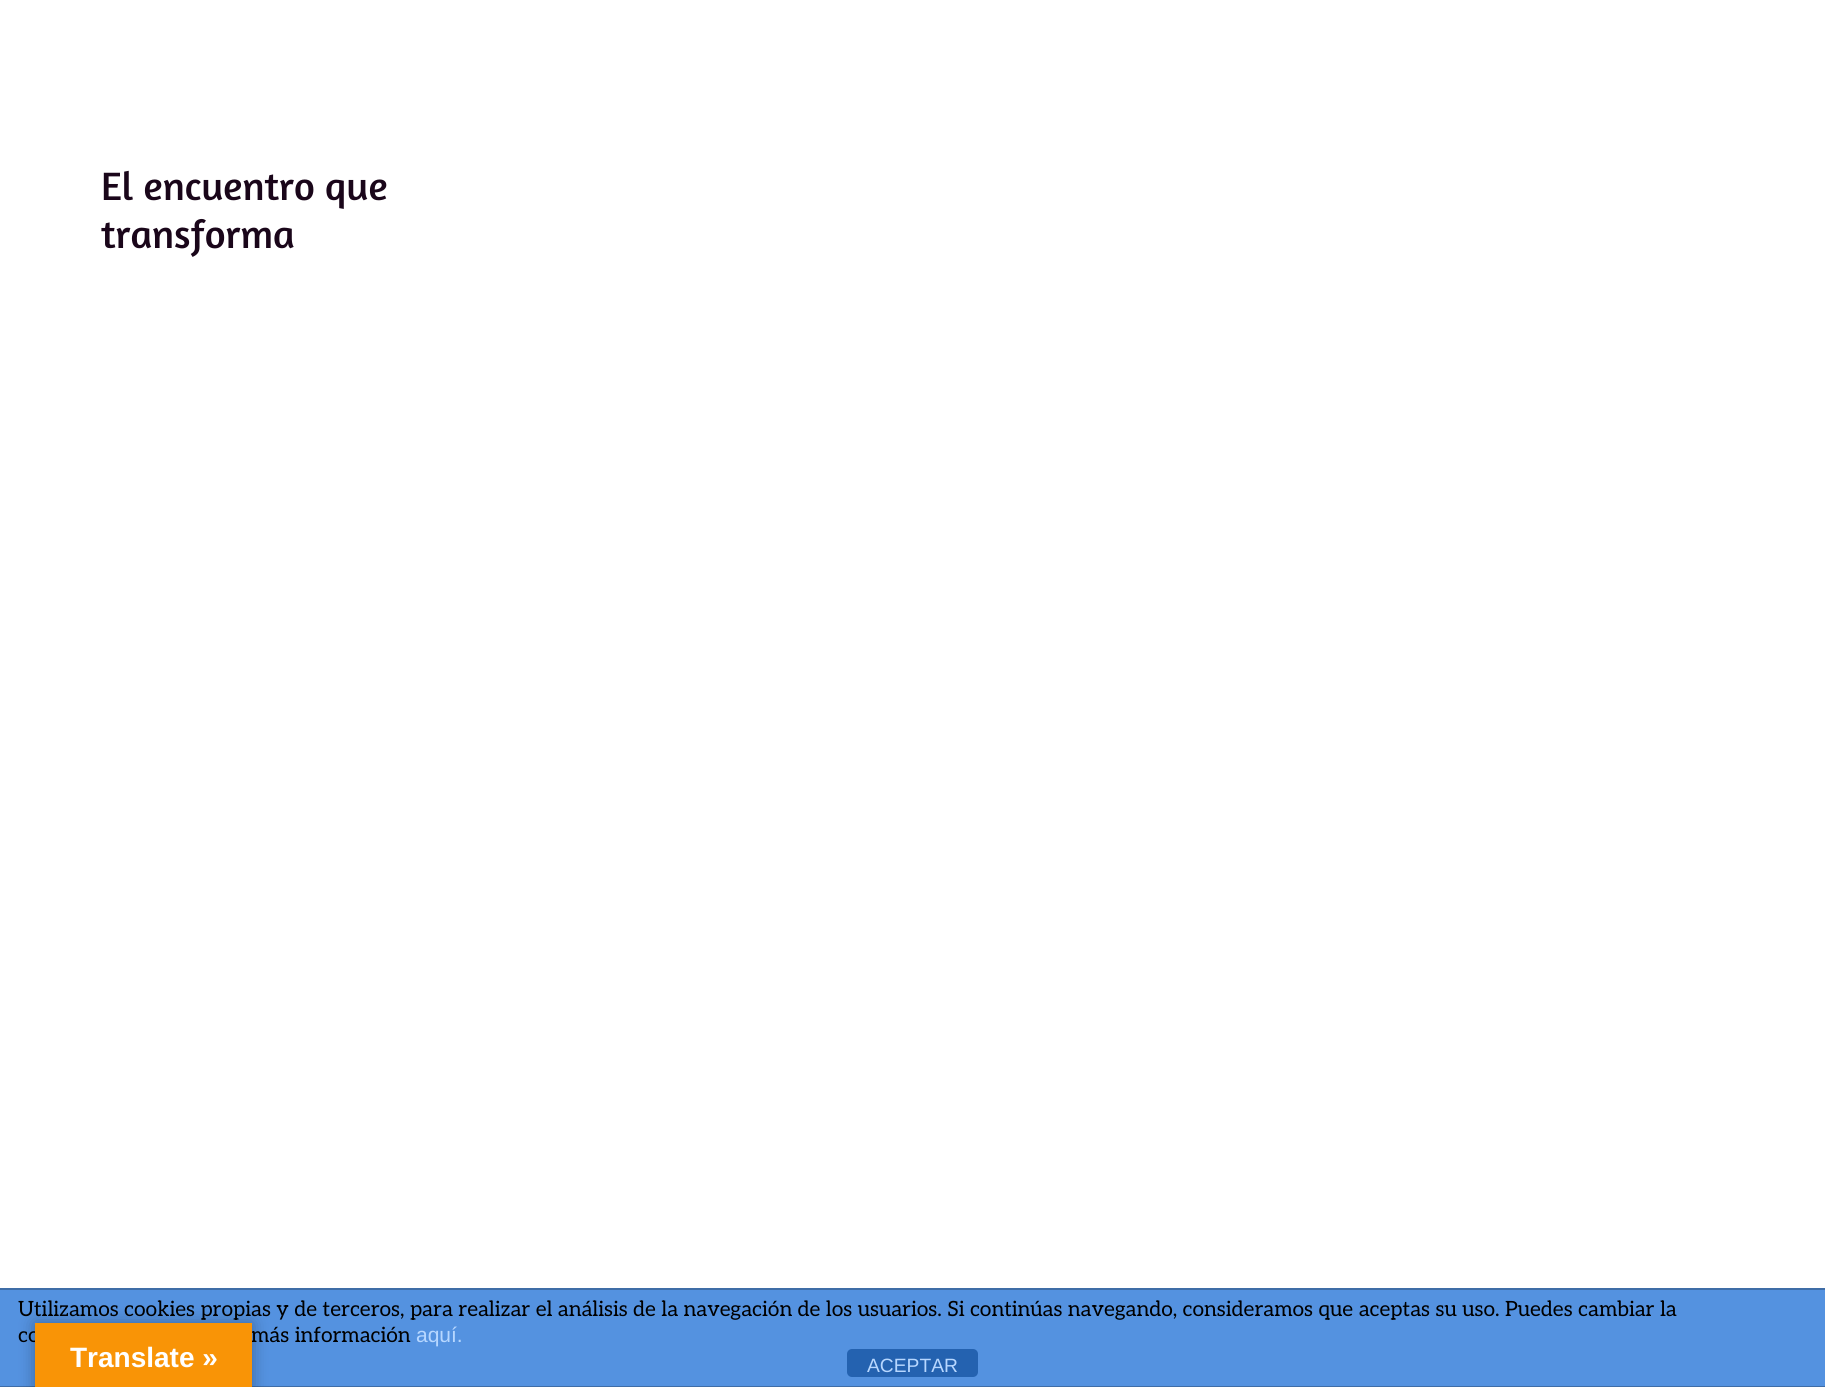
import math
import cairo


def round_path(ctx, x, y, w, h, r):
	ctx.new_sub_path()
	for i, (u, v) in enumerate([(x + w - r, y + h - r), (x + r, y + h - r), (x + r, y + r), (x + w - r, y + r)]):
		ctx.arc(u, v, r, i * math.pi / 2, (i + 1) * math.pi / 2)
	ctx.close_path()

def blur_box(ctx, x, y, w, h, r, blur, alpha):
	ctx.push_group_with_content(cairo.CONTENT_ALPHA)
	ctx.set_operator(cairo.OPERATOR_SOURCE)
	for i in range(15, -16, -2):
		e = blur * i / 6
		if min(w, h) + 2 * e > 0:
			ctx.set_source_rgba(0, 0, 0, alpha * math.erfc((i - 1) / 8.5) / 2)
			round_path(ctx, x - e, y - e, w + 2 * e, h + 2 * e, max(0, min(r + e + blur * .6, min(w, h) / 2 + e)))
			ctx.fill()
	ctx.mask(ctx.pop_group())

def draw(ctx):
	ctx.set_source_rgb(1, 1, 1)
	ctx.paint()
	ctx.select_font_face('Amaranth')
	ctx.set_font_size(40.25)
	ctx.set_source_rgb(0.102, 0.027, 0.102)
	ctx.move_to(101, 200)
	ctx.show_text('El encuentro que')
	ctx.move_to(101, 248)
	ctx.show_text('transforma')
	ctx.set_source_rgb(0.329, 0.573, 0.878)
	ctx.rectangle(0, 1290, 1825, 96)
	ctx.fill()
	ctx.set_source_rgb(0.247, 0.427, 0.655)
	ctx.rectangle(0, 1288, 1825, 2)
	ctx.rectangle(0, 1386, 1825, 1)
	ctx.fill()
	ctx.select_font_face('Aleo')
	ctx.set_font_size(21)
	ctx.set_source_rgb(0, 0, 0)
	for x, y, s in [
		(18, 1316, 'Utilizamos cookies propias y de terceros, para realizar el análisis de la navegación de los usuarios. Si continúas navegando, consideramos que aceptas su uso. Puedes cambiar la'),
		(18, 1342, 'co'),
		(251, 1342, 'más información'),
	]:
		ctx.move_to(x, y)
		ctx.show_text(s)
	ctx.select_font_face('Liberation Sans')
	ctx.set_source_rgb(0.718, 0.843, 1)
	ctx.move_to(416, 1342)
	ctx.show_text('aquí.')
	ctx.set_source_rgb(0.141, 0.384, 0.69)
	round_path(ctx, 847, 1349, 131, 28, 5)
	ctx.fill()
	ctx.set_font_size(19.25)
	ctx.set_source_rgb(0.718, 0.843, 1)
	ctx.move_to(867, 1372)
	ctx.show_text('ACEPTAR')
	ctx.set_source_rgb(0, 0, 0)
	blur_box(ctx, 35, 1323, 217, 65, 0, 8, 0.3)
	ctx.set_source_rgb(0.973, 0.58, 0.024)
	ctx.rectangle(35, 1323, 217, 64)
	ctx.fill()
	ctx.select_font_face('Liberation Sans', cairo.FONT_SLANT_NORMAL, cairo.FONT_WEIGHT_BOLD)
	ctx.set_font_size(28)
	ctx.set_source_rgb(1, 1, 1)
	ctx.move_to(70, 1367)
	ctx.show_text('Translate »')


surface = cairo.ImageSurface(cairo.FORMAT_RGB24, 1825, 1387)
ctx = cairo.Context(surface)
options = cairo.FontOptions()
options.set_hint_metrics(cairo.HINT_METRICS_OFF)
options.set_hint_style(cairo.HINT_STYLE_NONE)
ctx.set_font_options(options)
ctx.set_miter_limit(4)
draw(ctx)
surface.write_to_png('image.png')
